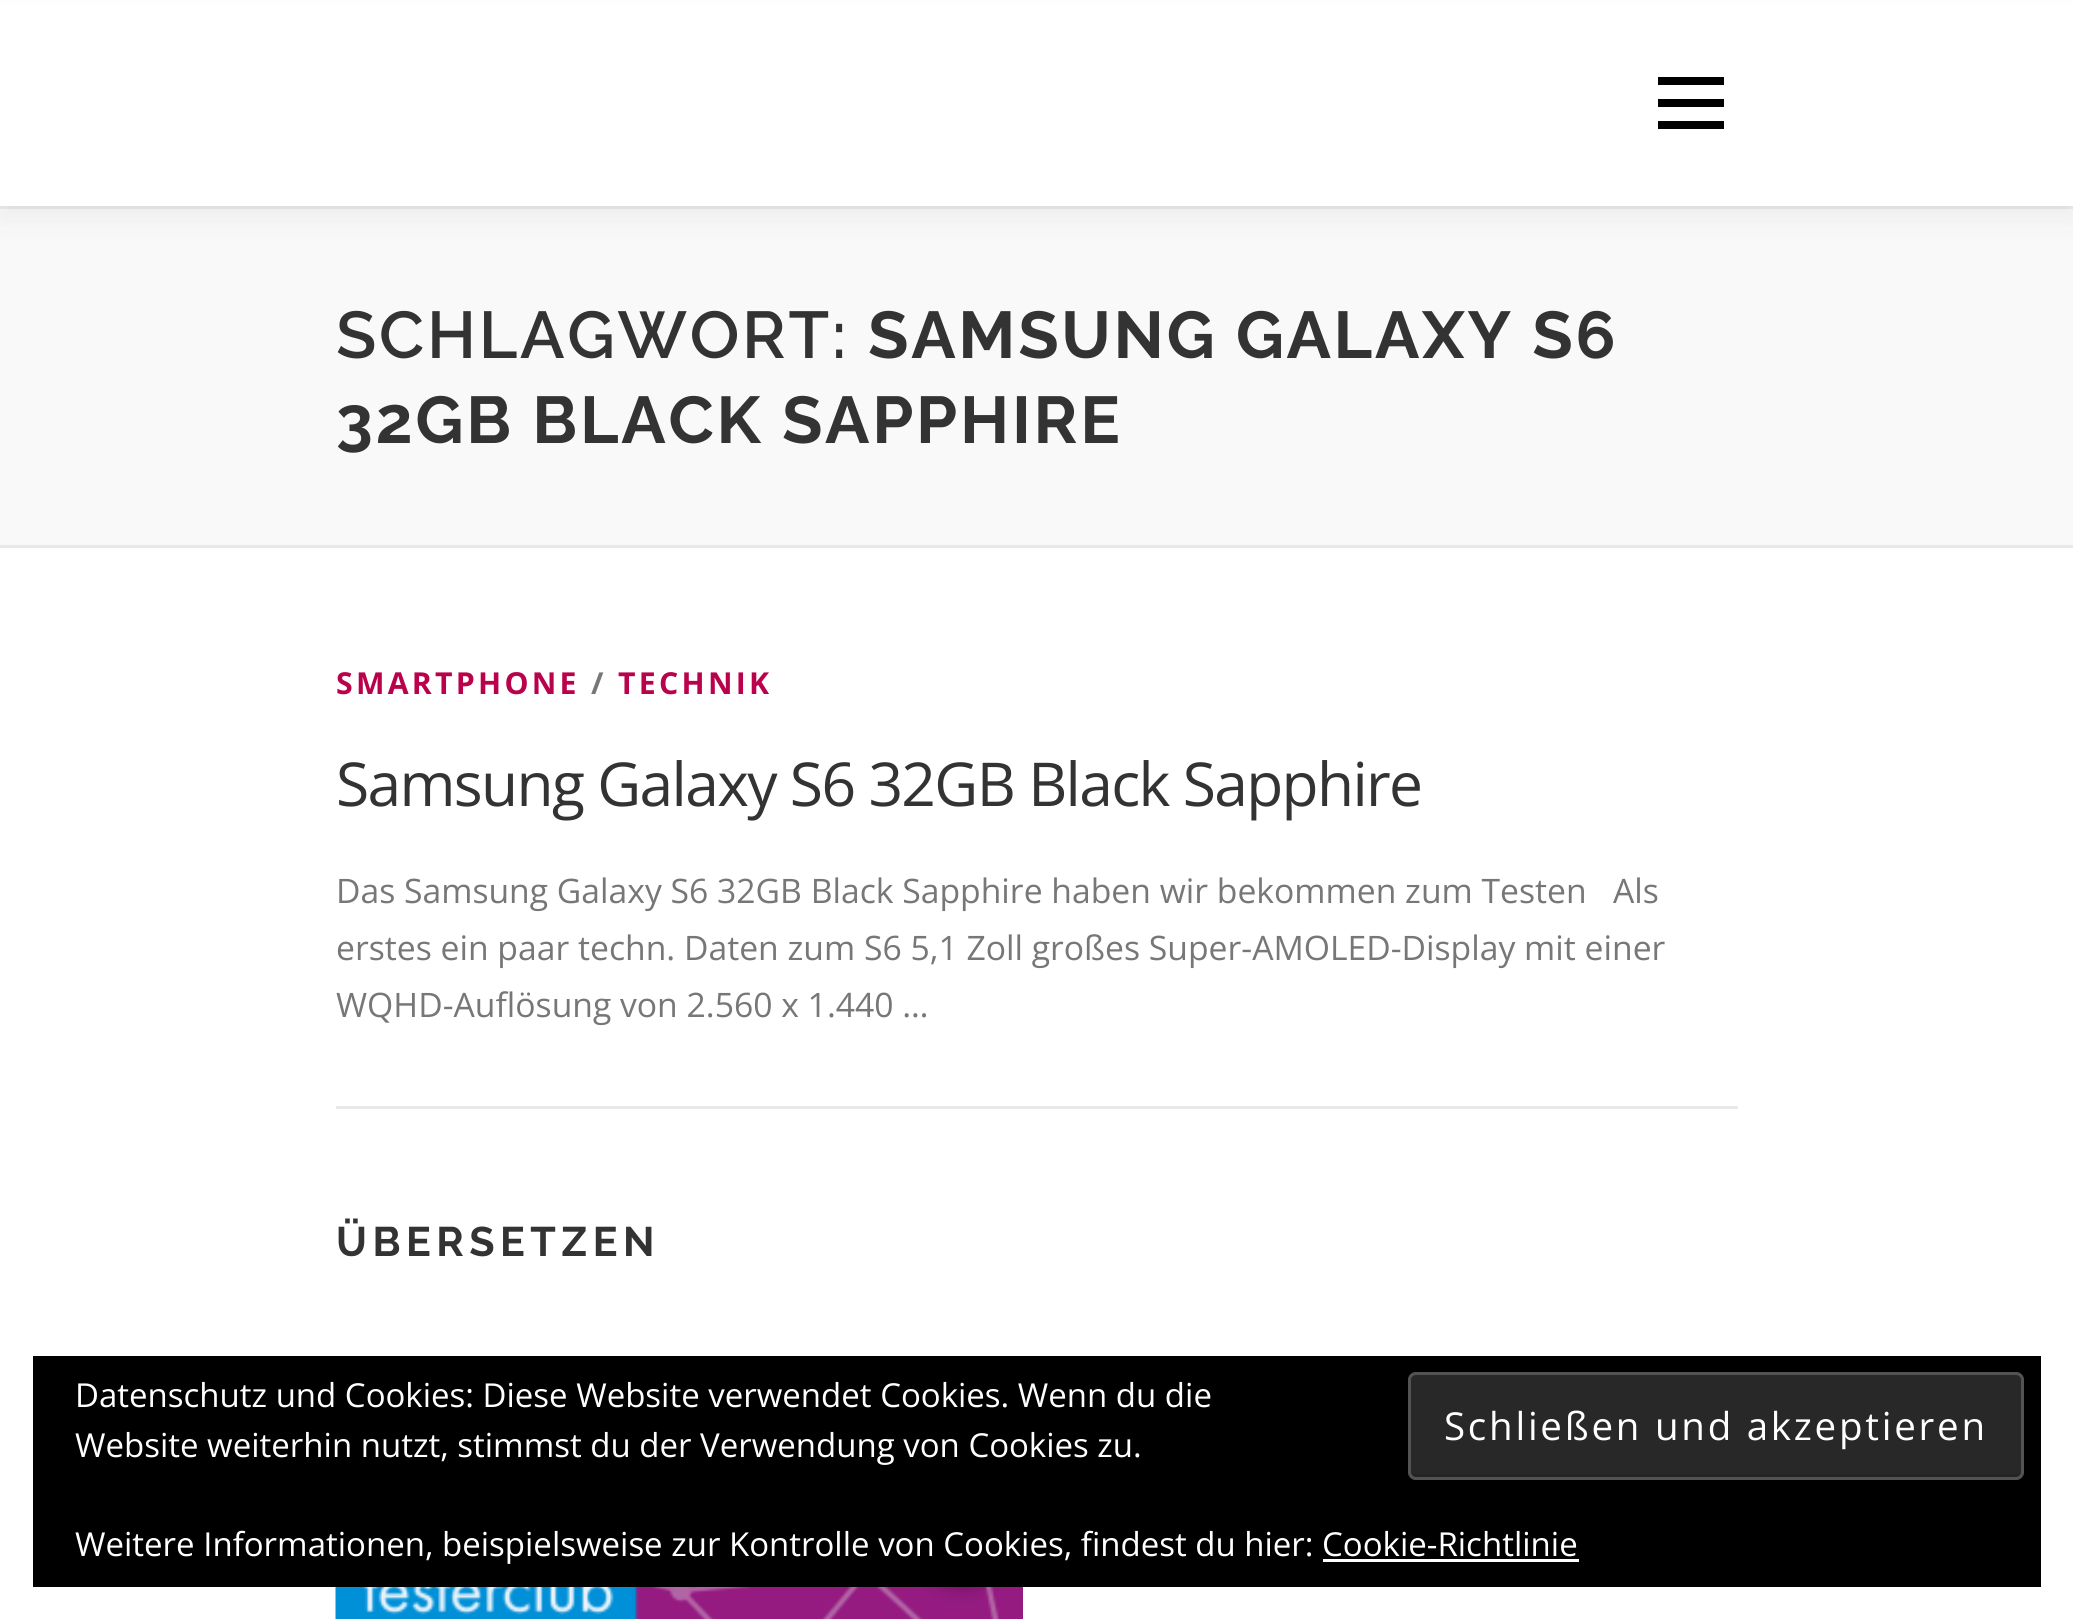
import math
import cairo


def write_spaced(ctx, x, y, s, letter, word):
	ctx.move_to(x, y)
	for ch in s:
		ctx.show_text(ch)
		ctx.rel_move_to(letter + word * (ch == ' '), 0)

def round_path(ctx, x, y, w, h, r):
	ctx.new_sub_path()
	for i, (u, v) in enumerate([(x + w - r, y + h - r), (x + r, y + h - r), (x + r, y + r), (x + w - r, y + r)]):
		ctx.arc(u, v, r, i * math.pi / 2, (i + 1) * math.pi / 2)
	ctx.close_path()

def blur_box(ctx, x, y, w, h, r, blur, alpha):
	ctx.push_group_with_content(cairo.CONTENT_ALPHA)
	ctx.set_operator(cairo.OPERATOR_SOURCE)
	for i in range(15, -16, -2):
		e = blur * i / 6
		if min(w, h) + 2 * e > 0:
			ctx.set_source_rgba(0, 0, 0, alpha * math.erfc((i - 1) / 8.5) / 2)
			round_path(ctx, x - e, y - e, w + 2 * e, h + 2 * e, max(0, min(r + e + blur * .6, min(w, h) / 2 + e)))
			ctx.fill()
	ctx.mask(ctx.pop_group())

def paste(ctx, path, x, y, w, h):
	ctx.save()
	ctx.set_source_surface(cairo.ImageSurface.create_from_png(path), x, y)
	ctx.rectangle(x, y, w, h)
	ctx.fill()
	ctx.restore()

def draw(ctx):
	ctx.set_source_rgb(1, 1, 1)
	ctx.paint()
	ctx.set_source_rgb(0.973, 0.976, 0.976)
	ctx.rectangle(0, 209, 2073, 336)
	ctx.fill()
	ctx.set_source_rgb(0.914, 0.914, 0.914)
	ctx.rectangle(0, 206, 2073, 3)
	ctx.fill()
	ctx.set_source_rgb(0.196, 0.196, 0.196)
	blur_box(ctx, 0, 14, 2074, 206, 0, 14, 0.06)
	ctx.set_source_rgb(1, 1, 1)
	ctx.rectangle(0, 3, 2073, 203)
	ctx.fill()
	ctx.set_source_rgb(0, 0, 0)
	ctx.rectangle(1658, 99, 66, 8)
	ctx.rectangle(1658, 77, 66, 8)
	ctx.rectangle(1658, 121, 66, 8)
	ctx.fill()
	ctx.set_source_rgb(0.914, 0.914, 0.914)
	ctx.rectangle(0, 545, 2073, 3)
	ctx.fill()
	ctx.select_font_face('Raleway SemiBold')
	ctx.set_font_size(66)
	ctx.set_source_rgb(0.2, 0.2, 0.2)
	write_spaced(ctx, 336, 358, 'SCHLAGWORT:', 2.75, 0)
	ctx.select_font_face('Raleway', cairo.FONT_SLANT_NORMAL, cairo.FONT_WEIGHT_BOLD)
	write_spaced(ctx, 868, 358, 'SAMSUNG GALAXY S6', 2.75, 0)
	write_spaced(ctx, 336, 443, '32GB BLACK SAPPHIRE', 2.75, 0)
	ctx.set_source_rgb(0.914, 0.914, 0.914)
	ctx.rectangle(336, 1106, 1402, 3)
	ctx.fill()
	ctx.select_font_face('Open Sans', cairo.FONT_SLANT_NORMAL, cairo.FONT_WEIGHT_BOLD)
	ctx.set_font_size(30.25)
	ctx.set_source_rgb(0.729, 0.004, 0.294)
	write_spaced(ctx, 336, 694, 'SMARTPHONE', 3.25, 0)
	ctx.set_source_rgb(0.467, 0.467, 0.467)
	write_spaced(ctx, 591, 694, '/', 3.25, 0)
	ctx.set_source_rgb(0.729, 0.004, 0.294)
	write_spaced(ctx, 618, 694, 'TECHNIK', 3.25, 0)
	ctx.select_font_face('Open Sans')
	ctx.set_font_size(60.5)
	ctx.set_source_rgb(0.2, 0.2, 0.2)
	write_spaced(ctx, 336, 806, 'Samsung Galaxy S6 32GB Black Sapphire', -1.65, 0)
	ctx.set_font_size(33.7)
	ctx.set_source_rgb(0.467, 0.467, 0.467)
	for x, y, s in [
		(336, 903, 'Das Samsung Galaxy S6 32GB Black Sapphire haben wir bekommen zum Testen   Als'),
		(336, 960, 'erstes ein paar techn. Daten zum S6 5,1 Zoll großes Super-AMOLED-Display mit einer'),
		(336, 1017, 'WQHD-Auflösung von 2.560 x 1.440 …'),
	]:
		ctx.move_to(x, y)
		ctx.show_text(s)
	ctx.select_font_face('Raleway', cairo.FONT_SLANT_NORMAL, cairo.FONT_WEIGHT_BOLD)
	ctx.set_font_size(41.25)
	ctx.set_source_rgb(0.2, 0.2, 0.2)
	write_spaced(ctx, 336, 1256, 'ÜBERSETZEN', 5.5, 0)
	paste(ctx, 'media/1.png', 335, 1587, 688, 32)
	ctx.set_source_rgb(0, 0, 0)
	ctx.rectangle(33, 1356, 2008, 231)
	ctx.fill()
	ctx.select_font_face('Open Sans')
	ctx.set_font_size(33)
	ctx.set_source_rgb(1, 1, 1)
	ctx.move_to(75, 1407)
	ctx.show_text('Datenschutz und Cookies: Diese Website verwendet Cookies. Wenn du die')
	ctx.move_to(75, 1457)
	ctx.show_text('Website weiterhin nutzt, stimmst du der Verwendung von Cookies zu.')
	ctx.set_source_rgb(0.157, 0.157, 0.157)
	round_path(ctx, 1408, 1372, 616, 108, 8)
	ctx.fill()
	ctx.set_source_rgb(0.141, 0.141, 0.141)
	ctx.new_path()
	ctx.move_to(1411, 1468)
	ctx.curve_to(1411, 1472, 1412, 1477, 1417, 1477)
	ctx.line_to(2015, 1477)
	ctx.curve_to(2020, 1477, 2021, 1472, 2021, 1468)
	ctx.curve_to(2021, 1472, 2019, 1474, 2016, 1474)
	ctx.line_to(1416, 1474)
	ctx.curve_to(1413, 1474, 1411, 1472, 1411, 1468)
	ctx.close_path()
	ctx.fill()
	round_path(ctx, 1409.5, 1373.5, 613, 105, 6.5)
	ctx.set_source_rgb(0.325, 0.325, 0.325)
	ctx.set_line_width(3)
	ctx.stroke()
	ctx.set_font_size(38.5)
	ctx.set_source_rgb(1, 1, 1)
	write_spaced(ctx, 1444, 1440, 'Schließen und akzeptieren', 2.75, 0)
	ctx.set_font_size(33)
	ctx.move_to(75, 1556)
	ctx.show_text('Weitere Informationen, beispielsweise zur Kontrolle von Cookies, findest du hier: Cookie-Richtlinie')
	ctx.rectangle(1323, 1559, 256, 3)
	ctx.fill()


surface = cairo.ImageSurface(cairo.FORMAT_RGB24, 2073, 1619)
ctx = cairo.Context(surface)
options = cairo.FontOptions()
options.set_hint_metrics(cairo.HINT_METRICS_OFF)
options.set_hint_style(cairo.HINT_STYLE_NONE)
ctx.set_font_options(options)
ctx.set_miter_limit(4)
draw(ctx)
surface.write_to_png('image.png')
